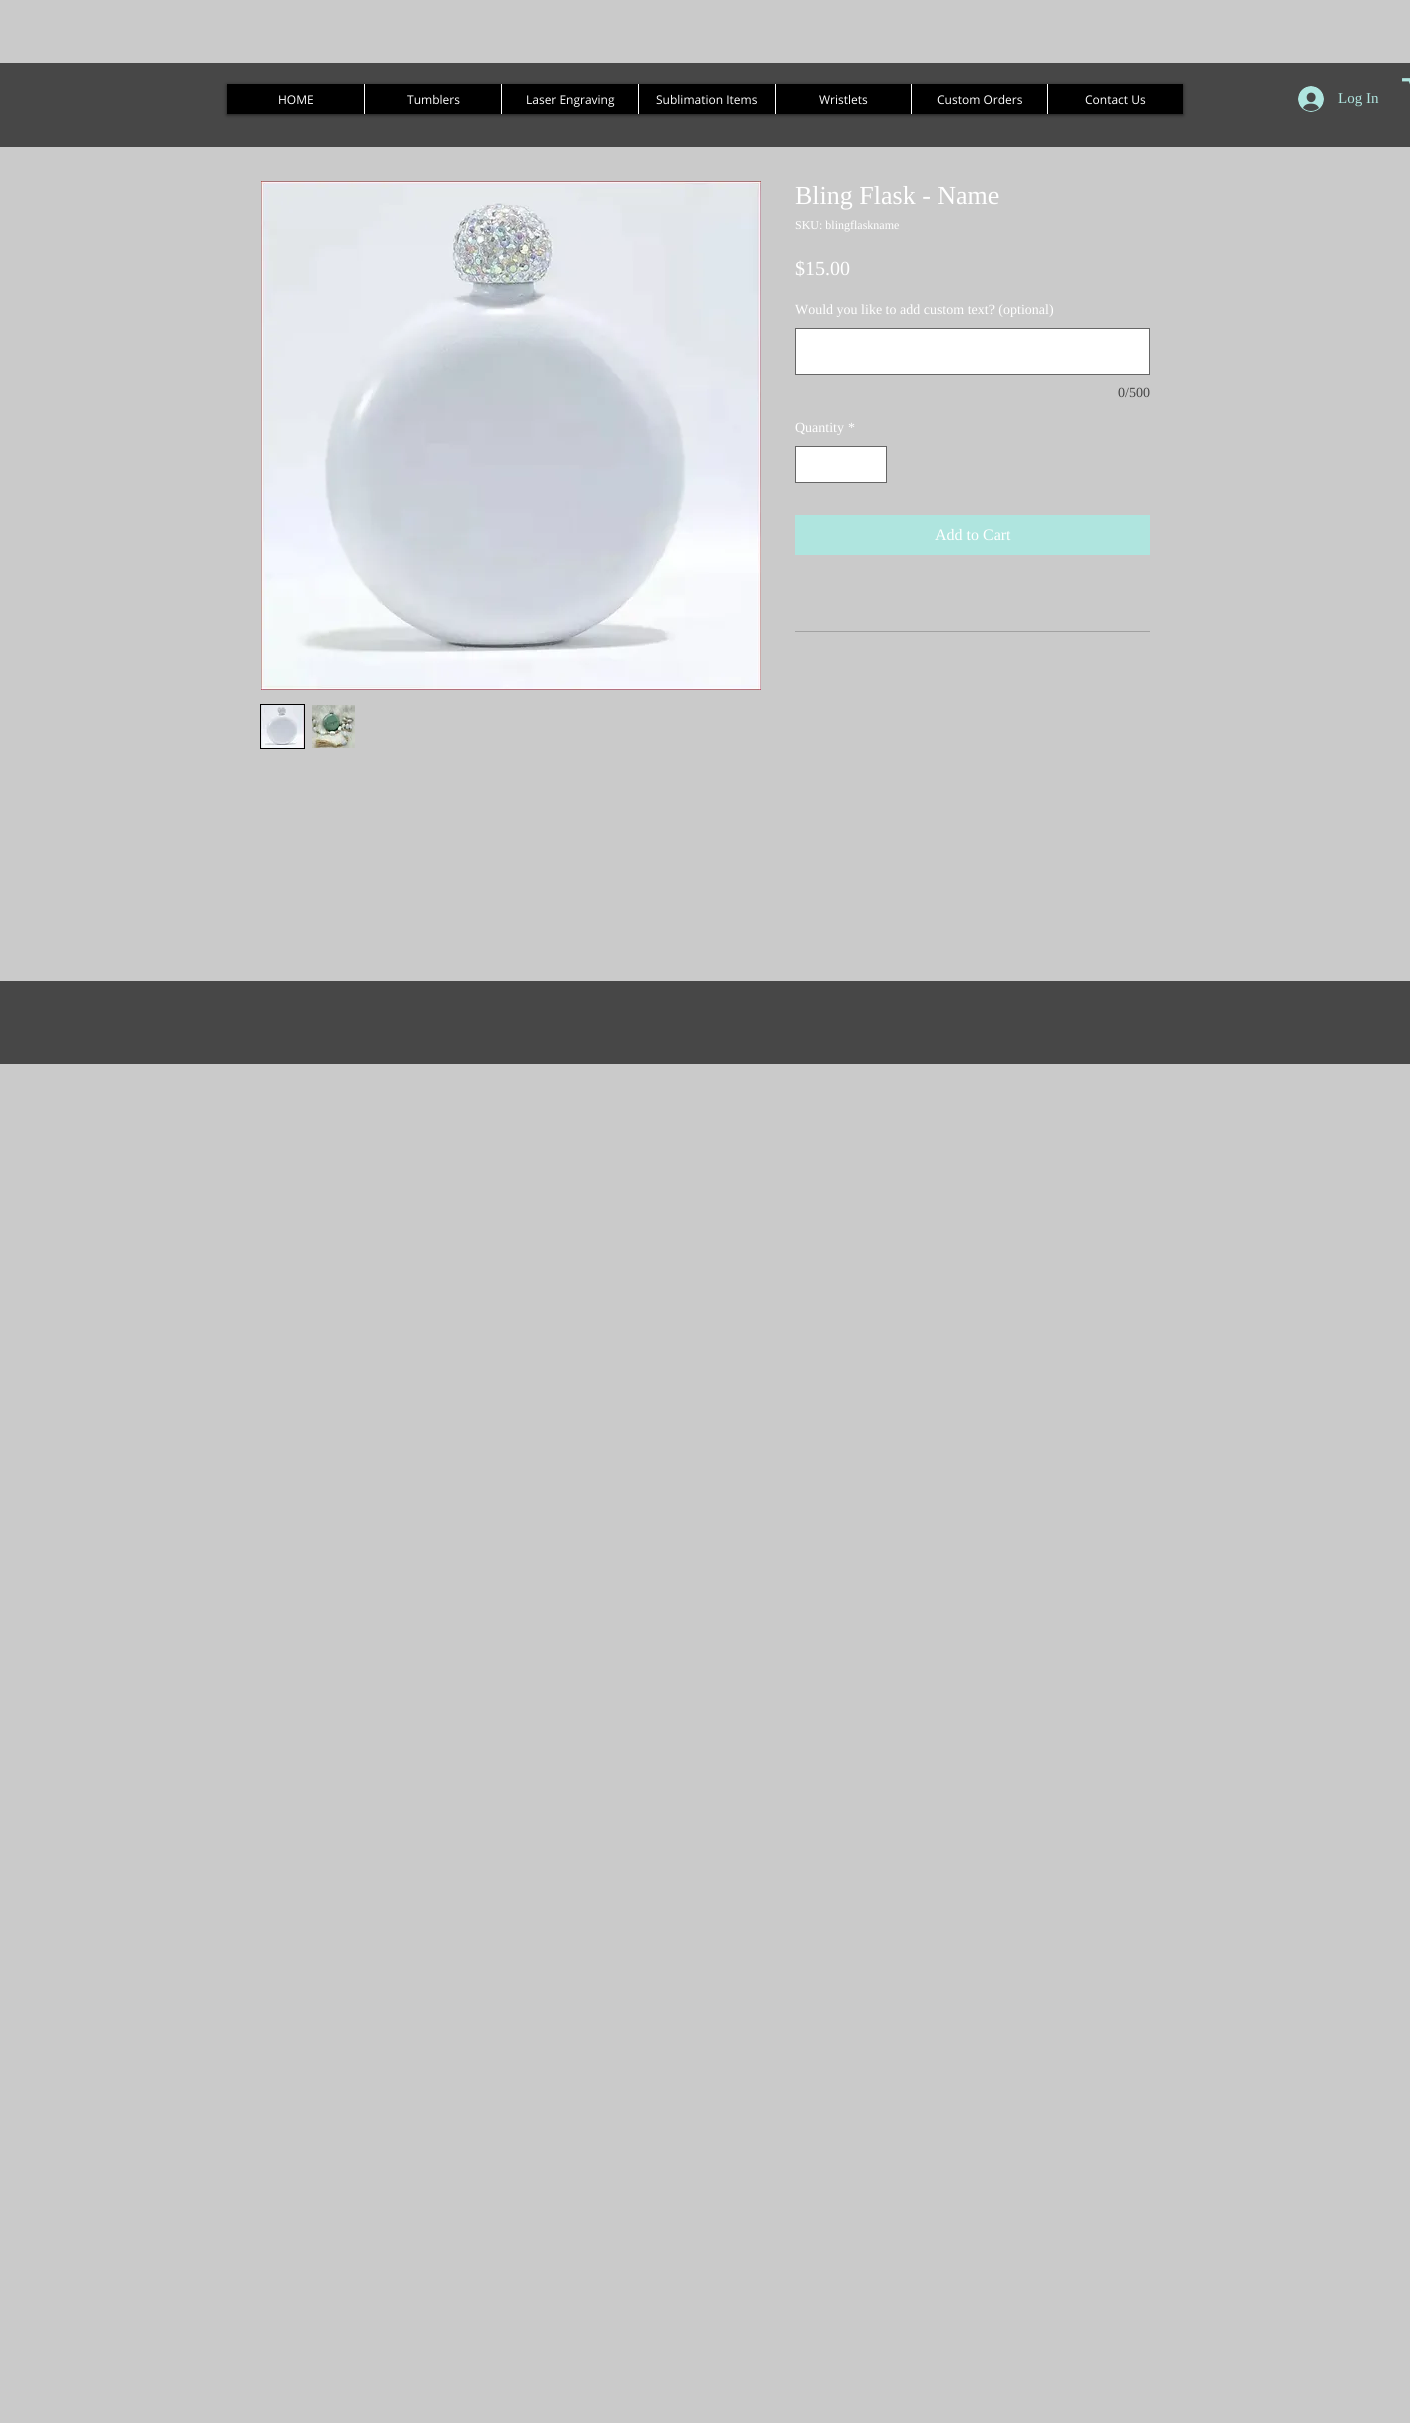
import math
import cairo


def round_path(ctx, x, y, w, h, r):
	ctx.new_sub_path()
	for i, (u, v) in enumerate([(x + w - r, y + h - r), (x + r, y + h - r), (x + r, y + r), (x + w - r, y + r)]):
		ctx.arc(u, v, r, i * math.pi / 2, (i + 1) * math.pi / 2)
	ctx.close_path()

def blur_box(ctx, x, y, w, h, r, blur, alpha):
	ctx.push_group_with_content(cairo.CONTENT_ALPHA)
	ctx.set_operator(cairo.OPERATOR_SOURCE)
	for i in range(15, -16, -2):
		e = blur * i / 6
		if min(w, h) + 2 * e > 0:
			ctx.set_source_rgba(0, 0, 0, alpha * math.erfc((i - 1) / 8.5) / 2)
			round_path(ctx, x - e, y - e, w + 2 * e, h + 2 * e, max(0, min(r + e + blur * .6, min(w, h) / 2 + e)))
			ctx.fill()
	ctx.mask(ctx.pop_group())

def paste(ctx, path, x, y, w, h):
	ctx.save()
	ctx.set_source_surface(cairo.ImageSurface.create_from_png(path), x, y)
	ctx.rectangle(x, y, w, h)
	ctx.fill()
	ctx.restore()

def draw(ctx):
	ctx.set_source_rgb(0.792, 0.792, 0.792)
	ctx.paint()
	ctx.set_source_rgb(0.278, 0.278, 0.278)
	ctx.rectangle(0, 63, 1410, 84)
	ctx.fill()
	paste(ctx, 'media/1.png', 1402, 78, 8, 7)
	ctx.set_source_rgb(0, 0, 0)
	blur_box(ctx, 227, 85, 956, 30, 0, 2, 0.6)
	ctx.set_source_rgb(0, 0, 0)
	ctx.rectangle(227, 84, 956, 30)
	ctx.fill()
	ctx.select_font_face('Open Sans')
	ctx.set_font_size(12)
	ctx.set_source_rgb(1, 1, 1)
	ctx.move_to(278, 104)
	ctx.show_text('HOME')
	ctx.rectangle(364, 84, 1, 30)
	ctx.fill()
	ctx.move_to(407, 104)
	ctx.show_text('Tumblers')
	ctx.rectangle(501, 84, 1, 30)
	ctx.fill()
	ctx.move_to(526, 104)
	ctx.show_text('Laser Engraving')
	ctx.rectangle(638, 84, 1, 30)
	ctx.fill()
	ctx.move_to(656, 104)
	ctx.show_text('Sublimation Items')
	ctx.rectangle(775, 84, 1, 30)
	ctx.fill()
	ctx.move_to(819, 104)
	ctx.show_text('Wristlets')
	ctx.rectangle(911, 84, 1, 30)
	ctx.fill()
	ctx.move_to(937, 104)
	ctx.show_text('Custom Orders')
	ctx.rectangle(1047, 84, 1, 30)
	ctx.fill()
	ctx.move_to(1085, 104)
	ctx.show_text('Contact Us')
	paste(ctx, 'media/2.png', 1298, 86, 26, 26)
	ctx.select_font_face('Liberation Serif')
	ctx.set_font_size(15)
	ctx.set_source_rgb(0.686, 0.898, 0.875)
	ctx.move_to(1338, 103)
	ctx.show_text('Log In')
	paste(ctx, 'media/3.png', 261, 181, 500, 509)
	ctx.rectangle(260.5, 704.5, 44, 44)
	ctx.set_source_rgb(0, 0, 0)
	ctx.set_line_width(1)
	ctx.stroke()
	paste(ctx, 'media/4.png', 261, 705, 43, 43)
	paste(ctx, 'media/5.png', 312, 705, 43, 43)
	ctx.set_font_size(26)
	ctx.set_source_rgb(1, 1, 1)
	ctx.move_to(795, 204)
	ctx.show_text('Bling Flask - Name')
	ctx.set_font_size(12)
	ctx.move_to(795, 229)
	ctx.show_text('SKU: blingflaskname')
	ctx.set_font_size(20)
	ctx.move_to(795, 275)
	ctx.show_text('$15.00')
	ctx.set_font_size(14)
	ctx.move_to(795, 314)
	ctx.show_text('Would you like to add custom text? (optional)')
	ctx.rectangle(795.5, 328.5, 354, 46)
	ctx.fill_preserve()
	ctx.set_source_rgb(0.4, 0.4, 0.4)
	ctx.stroke()
	ctx.set_source_rgb(0.275, 0.275, 0.275)
	ctx.move_to(1118, 397)
	ctx.show_text('0/500')
	ctx.set_source_rgb(1, 1, 1)
	ctx.move_to(795, 432)
	ctx.show_text('Quantity')
	ctx.move_to(848, 432)
	ctx.show_text('*')
	ctx.rectangle(795.5, 446.5, 91, 36)
	ctx.fill_preserve()
	ctx.set_source_rgb(0.4, 0.4, 0.4)
	ctx.stroke()
	ctx.set_source_rgb(0.686, 0.898, 0.875)
	ctx.rectangle(795, 515, 355, 40)
	ctx.fill()
	ctx.set_font_size(16)
	ctx.set_source_rgb(1, 1, 1)
	ctx.move_to(935, 540)
	ctx.show_text('Add to Cart')
	ctx.set_source_rgb(0.635, 0.635, 0.635)
	ctx.rectangle(795, 631, 355, 1)
	ctx.fill()
	ctx.set_source_rgb(0.278, 0.278, 0.278)
	ctx.rectangle(0, 981, 1410, 83)
	ctx.fill()


surface = cairo.ImageSurface(cairo.FORMAT_RGB24, 1410, 2423)
ctx = cairo.Context(surface)
options = cairo.FontOptions()
options.set_hint_metrics(cairo.HINT_METRICS_OFF)
options.set_hint_style(cairo.HINT_STYLE_NONE)
ctx.set_font_options(options)
ctx.set_miter_limit(4)
draw(ctx)
surface.write_to_png('image.png')
